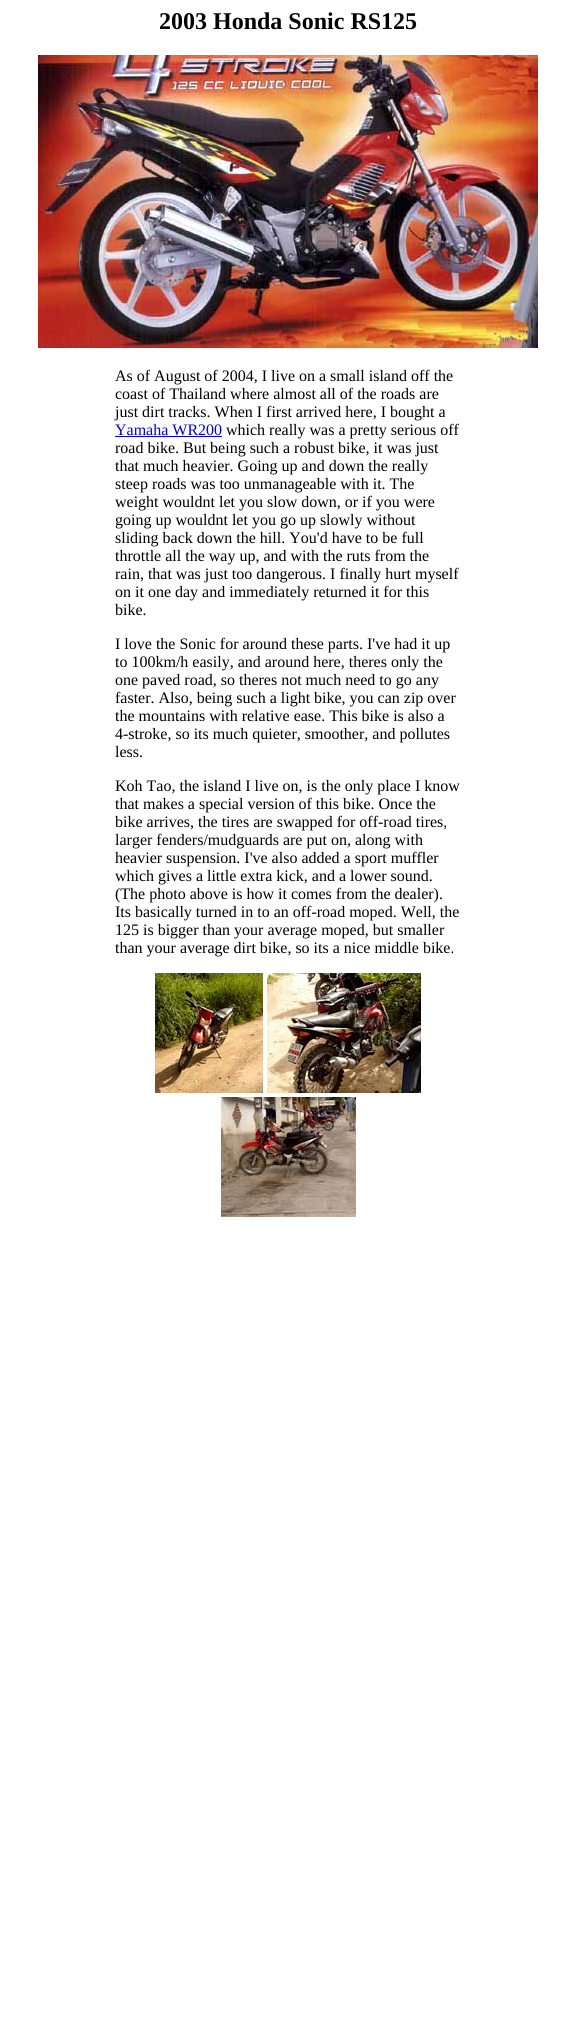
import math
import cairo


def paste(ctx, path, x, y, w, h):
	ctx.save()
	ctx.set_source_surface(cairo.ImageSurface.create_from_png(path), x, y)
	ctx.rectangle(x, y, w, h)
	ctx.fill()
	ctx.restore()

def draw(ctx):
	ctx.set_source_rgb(1, 1, 1)
	ctx.paint()
	ctx.select_font_face('Liberation Serif', cairo.FONT_SLANT_NORMAL, cairo.FONT_WEIGHT_BOLD)
	ctx.set_font_size(24)
	ctx.set_source_rgb(0, 0, 0)
	ctx.move_to(159, 29)
	ctx.show_text('2003 Honda Sonic RS125')
	paste(ctx, 'media/1.png', 38, 55, 500, 293)
	ctx.select_font_face('Liberation Serif')
	ctx.set_font_size(16)
	for x, y, s in [
		(115, 381, 'As of August of 2004, I live on a small island off the'),
		(115, 399, 'coast of Thailand where almost all of the roads are'),
		(115, 417, 'just dirt tracks. When I first arrived here, I bought a'),
	]:
		ctx.move_to(x, y)
		ctx.show_text(s)
	ctx.set_source_rgb(0, 0, 0.933)
	ctx.move_to(115, 435)
	ctx.show_text('Yamaha WR200')
	ctx.rectangle(115, 436, 107, 1)
	ctx.fill()
	ctx.set_source_rgb(0, 0, 0)
	for x, y, s in [
		(226, 435, 'which really was a pretty serious off'),
		(115, 453, 'road bike. But being such a robust bike, it was just'),
		(115, 471, 'that much heavier. Going up and down the really'),
		(115, 489, 'steep roads was too unmanageable with it. The'),
		(115, 507, 'weight wouldnt let you slow down, or if you were'),
		(115, 525, 'going up wouldnt let you go up slowly without'),
		(115, 543, 'sliding back down the hill. You\'d have to be full'),
		(115, 561, 'throttle all the way up, and with the ruts from the'),
		(115, 579, 'rain, that was just too dangerous. I finally hurt myself'),
		(115, 597, 'on it one day and immediately returned it for this'),
		(115, 615, 'bike.'),
		(115, 649, 'I love the Sonic for around these parts. I\'ve had it up'),
		(115, 667, 'to 100km/h easily, and around here, theres only the'),
		(115, 685, 'one paved road, so theres not much need to go any'),
		(115, 703, 'faster. Also, being such a light bike, you can zip over'),
		(115, 721, 'the mountains with relative ease. This bike is also a'),
		(115, 739, '4-stroke, so its much quieter, smoother, and pollutes'),
		(115, 757, 'less.'),
		(115, 791, 'Koh Tao, the island I live on, is the only place I know'),
		(115, 809, 'that makes a special version of this bike. Once the'),
		(115, 827, 'bike arrives, the tires are swapped for off-road tires,'),
		(115, 845, 'larger fenders/mudguards are put on, along with'),
		(115, 863, 'heavier suspension. I\'ve also added a sport muffler'),
		(115, 881, 'which gives a little extra kick, and a lower sound.'),
		(115, 899, '(The photo above is how it comes from the dealer).'),
		(115, 917, 'Its basically turned in to an off-road moped. Well, the'),
		(115, 935, '125 is bigger than your average moped, but smaller'),
		(115, 953, 'than your average dirt bike, so its a nice middle bike.'),
	]:
		ctx.move_to(x, y)
		ctx.show_text(s)
	paste(ctx, 'media/2.png', 155, 973, 108, 120)
	paste(ctx, 'media/3.png', 267, 973, 154, 120)
	paste(ctx, 'media/4.png', 221, 1097, 135, 120)


surface = cairo.ImageSurface(cairo.FORMAT_RGB24, 576, 2043)
ctx = cairo.Context(surface)
options = cairo.FontOptions()
options.set_hint_metrics(cairo.HINT_METRICS_OFF)
options.set_hint_style(cairo.HINT_STYLE_NONE)
ctx.set_font_options(options)
ctx.set_miter_limit(4)
draw(ctx)
surface.write_to_png('image.png')
